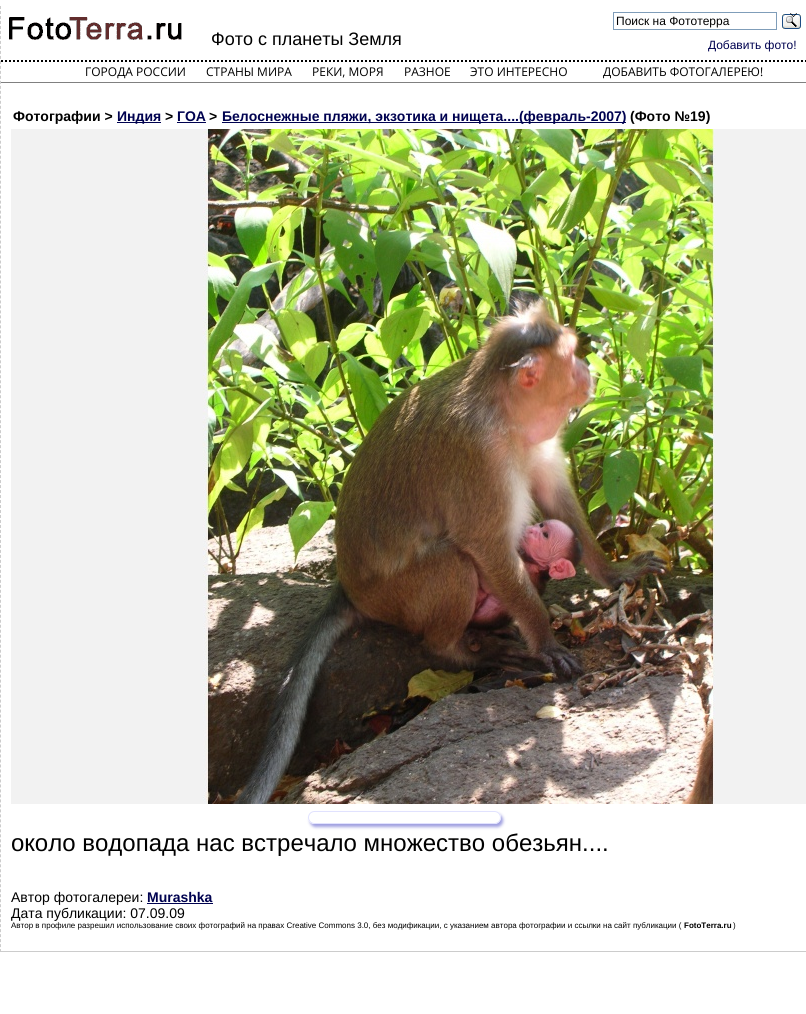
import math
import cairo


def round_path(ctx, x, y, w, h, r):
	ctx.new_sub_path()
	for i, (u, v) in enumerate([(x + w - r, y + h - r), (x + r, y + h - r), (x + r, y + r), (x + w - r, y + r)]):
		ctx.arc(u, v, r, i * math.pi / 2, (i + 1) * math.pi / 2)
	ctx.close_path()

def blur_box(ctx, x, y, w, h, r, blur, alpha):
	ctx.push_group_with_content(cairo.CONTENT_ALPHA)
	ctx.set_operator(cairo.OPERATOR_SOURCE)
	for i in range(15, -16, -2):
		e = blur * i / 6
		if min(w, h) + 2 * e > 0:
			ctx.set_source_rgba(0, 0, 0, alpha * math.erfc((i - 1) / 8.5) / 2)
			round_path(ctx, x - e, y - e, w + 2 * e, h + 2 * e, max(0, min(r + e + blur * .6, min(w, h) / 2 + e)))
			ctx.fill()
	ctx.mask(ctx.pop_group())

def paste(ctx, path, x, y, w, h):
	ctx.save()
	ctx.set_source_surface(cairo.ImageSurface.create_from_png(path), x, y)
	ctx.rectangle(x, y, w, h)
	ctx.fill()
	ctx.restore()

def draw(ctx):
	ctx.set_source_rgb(1, 1, 1)
	ctx.paint()
	ctx.set_source_rgb(0.8, 0.8, 0.8)
	ctx.rectangle(0, 951, 806, 1)
	ctx.fill()
	ctx.new_path()
	ctx.move_to(0.5, 6)
	ctx.line_to(0.5, 952)
	ctx.set_line_width(1)
	ctx.set_dash([3, 1.99])
	ctx.stroke()
	paste(ctx, 'media/1.png', 9, 17, 173, 23)
	ctx.select_font_face('Liberation Sans')
	ctx.set_font_size(18)
	ctx.set_source_rgb(0, 0, 0)
	ctx.move_to(211, 45)
	ctx.show_text('Фото с планеты Земля')
	ctx.rectangle(613.5, 12.5, 163, 17)
	ctx.set_source_rgb(0.498, 0.616, 0.725)
	ctx.set_dash([])
	ctx.stroke()
	ctx.set_font_size(12)
	ctx.set_source_rgb(0, 0, 0)
	ctx.move_to(616, 25)
	ctx.show_text('Поиск на Фототерра')
	paste(ctx, 'media/2.png', 782, 14, 19, 15)
	ctx.set_source_rgb(0, 0.008, 0.314)
	ctx.move_to(708, 49)
	ctx.show_text('Добавить фото!')
	ctx.new_path()
	ctx.move_to(1, 61)
	ctx.line_to(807, 61)
	ctx.set_source_rgb(0, 0, 0)
	ctx.set_line_width(2)
	ctx.set_dash([2, 2])
	ctx.stroke()
	ctx.set_source_rgb(0.502, 0.502, 0.502)
	ctx.rectangle(1, 82, 805, 1)
	ctx.fill()
	ctx.select_font_face('Open Sans')
	ctx.set_source_rgb(0, 0, 0)
	for x, y, s in [
		(85, 76, 'ГОРОДА РОССИИ'),
		(206, 76, 'СТРАНЫ МИРА'),
		(312, 76, 'РЕКИ, МОРЯ'),
		(404, 76, 'РАЗНОЕ'),
	]:
		ctx.move_to(x, y)
		ctx.show_text(s)
	ctx.new_path()
	ctx.move_to(796.5, 13)
	ctx.line_to(797, 13.5)
	ctx.line_to(793.5, 17)
	ctx.line_to(793, 16.5)
	ctx.close_path()
	ctx.fill()
	ctx.new_path()
	ctx.move_to(790.5, 13)
	ctx.line_to(794, 16.5)
	ctx.line_to(793.5, 17)
	ctx.line_to(790, 13.5)
	ctx.close_path()
	ctx.fill()
	ctx.move_to(470, 76)
	ctx.show_text('ЭТО ИНТЕРЕСНО')
	ctx.move_to(603, 76)
	ctx.show_text('ДОБАВИТЬ ФОТОГАЛЕРЕЮ!')
	ctx.select_font_face('Liberation Sans', cairo.FONT_SLANT_NORMAL, cairo.FONT_WEIGHT_BOLD)
	ctx.set_font_size(14)
	ctx.move_to(13, 121)
	ctx.show_text('Фотографии >')
	ctx.set_source_rgb(0, 0.008, 0.314)
	ctx.rectangle(117, 122, 44, 1)
	ctx.fill()
	ctx.move_to(117, 121)
	ctx.show_text('Индия')
	ctx.set_source_rgb(0, 0, 0)
	ctx.move_to(165, 121)
	ctx.show_text('>')
	ctx.set_source_rgb(0, 0.008, 0.314)
	ctx.move_to(177, 121)
	ctx.show_text('ГОА')
	ctx.rectangle(177, 122, 29, 1)
	ctx.fill()
	ctx.set_source_rgb(0, 0, 0)
	ctx.move_to(209, 121)
	ctx.show_text('>')
	ctx.set_source_rgb(0, 0.008, 0.314)
	ctx.rectangle(222, 122, 404, 1)
	ctx.fill()
	ctx.move_to(222, 121)
	ctx.show_text('Белоснежные пляжи, экзотика и нищета....(февраль-2007)')
	ctx.set_source_rgb(0, 0, 0)
	ctx.move_to(630, 121)
	ctx.show_text('(Фото №19)')
	paste(ctx, 'media/3.png', 11, 129, 795, 675)
	ctx.save()
	ctx.set_fill_rule(cairo.FILL_RULE_EVEN_ODD)
	ctx.new_path()
	ctx.move_to(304, 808)
	ctx.line_to(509, 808)
	ctx.line_to(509, 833)
	ctx.line_to(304, 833)
	ctx.close_path()
	ctx.move_to(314.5, 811)
	ctx.line_to(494.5, 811)
	ctx.curve_to(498, 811, 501, 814, 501, 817.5)
	ctx.curve_to(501, 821, 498, 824, 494.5, 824)
	ctx.line_to(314.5, 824)
	ctx.curve_to(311, 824, 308, 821, 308, 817.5)
	ctx.curve_to(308, 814, 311, 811, 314.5, 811)
	ctx.close_path()
	ctx.clip()
	ctx.set_source_rgb(0.627, 0.627, 0.878)
	blur_box(ctx, 310, 814, 193, 13, 6.5, 1.5, 1)
	ctx.restore()
	round_path(ctx, 308.5, 811.5, 192, 12, 6)
	ctx.set_source_rgb(0.882, 0.886, 0.996)
	ctx.set_line_width(1)
	ctx.set_dash([])
	ctx.stroke()
	ctx.select_font_face('Liberation Sans')
	ctx.set_font_size(24)
	ctx.set_source_rgb(0, 0, 0)
	ctx.move_to(11, 851)
	ctx.show_text('около водопада нас встречало множество обезьян....')
	ctx.set_font_size(14)
	ctx.move_to(11, 902)
	ctx.show_text('Автор фотогалереи:')
	ctx.select_font_face('Liberation Sans', cairo.FONT_SLANT_NORMAL, cairo.FONT_WEIGHT_BOLD)
	ctx.set_source_rgb(0, 0.008, 0.314)
	ctx.move_to(147, 902)
	ctx.show_text('Murashka')
	ctx.rectangle(147, 903, 66, 1)
	ctx.fill()
	ctx.select_font_face('Liberation Sans')
	ctx.set_source_rgb(0, 0, 0)
	ctx.move_to(11, 918)
	ctx.show_text('Дата публикации: 07.09.09')
	ctx.set_font_size(8)
	ctx.move_to(11, 928)
	ctx.show_text('Автор в профиле разрешил использование своих фотографий на правах Creative Commons 3.0, без модификации, с указанием автора фотографии и ссылки на сайт публикации (')
	ctx.select_font_face('Liberation Sans', cairo.FONT_SLANT_NORMAL, cairo.FONT_WEIGHT_BOLD)
	ctx.move_to(684, 928)
	ctx.show_text('FotoTerra.ru')
	ctx.select_font_face('Liberation Sans')
	ctx.move_to(733, 928)
	ctx.show_text(')')


surface = cairo.ImageSurface(cairo.FORMAT_RGB24, 806, 1014)
ctx = cairo.Context(surface)
options = cairo.FontOptions()
options.set_hint_metrics(cairo.HINT_METRICS_OFF)
options.set_hint_style(cairo.HINT_STYLE_NONE)
ctx.set_font_options(options)
ctx.set_miter_limit(4)
draw(ctx)
surface.write_to_png('image.png')
